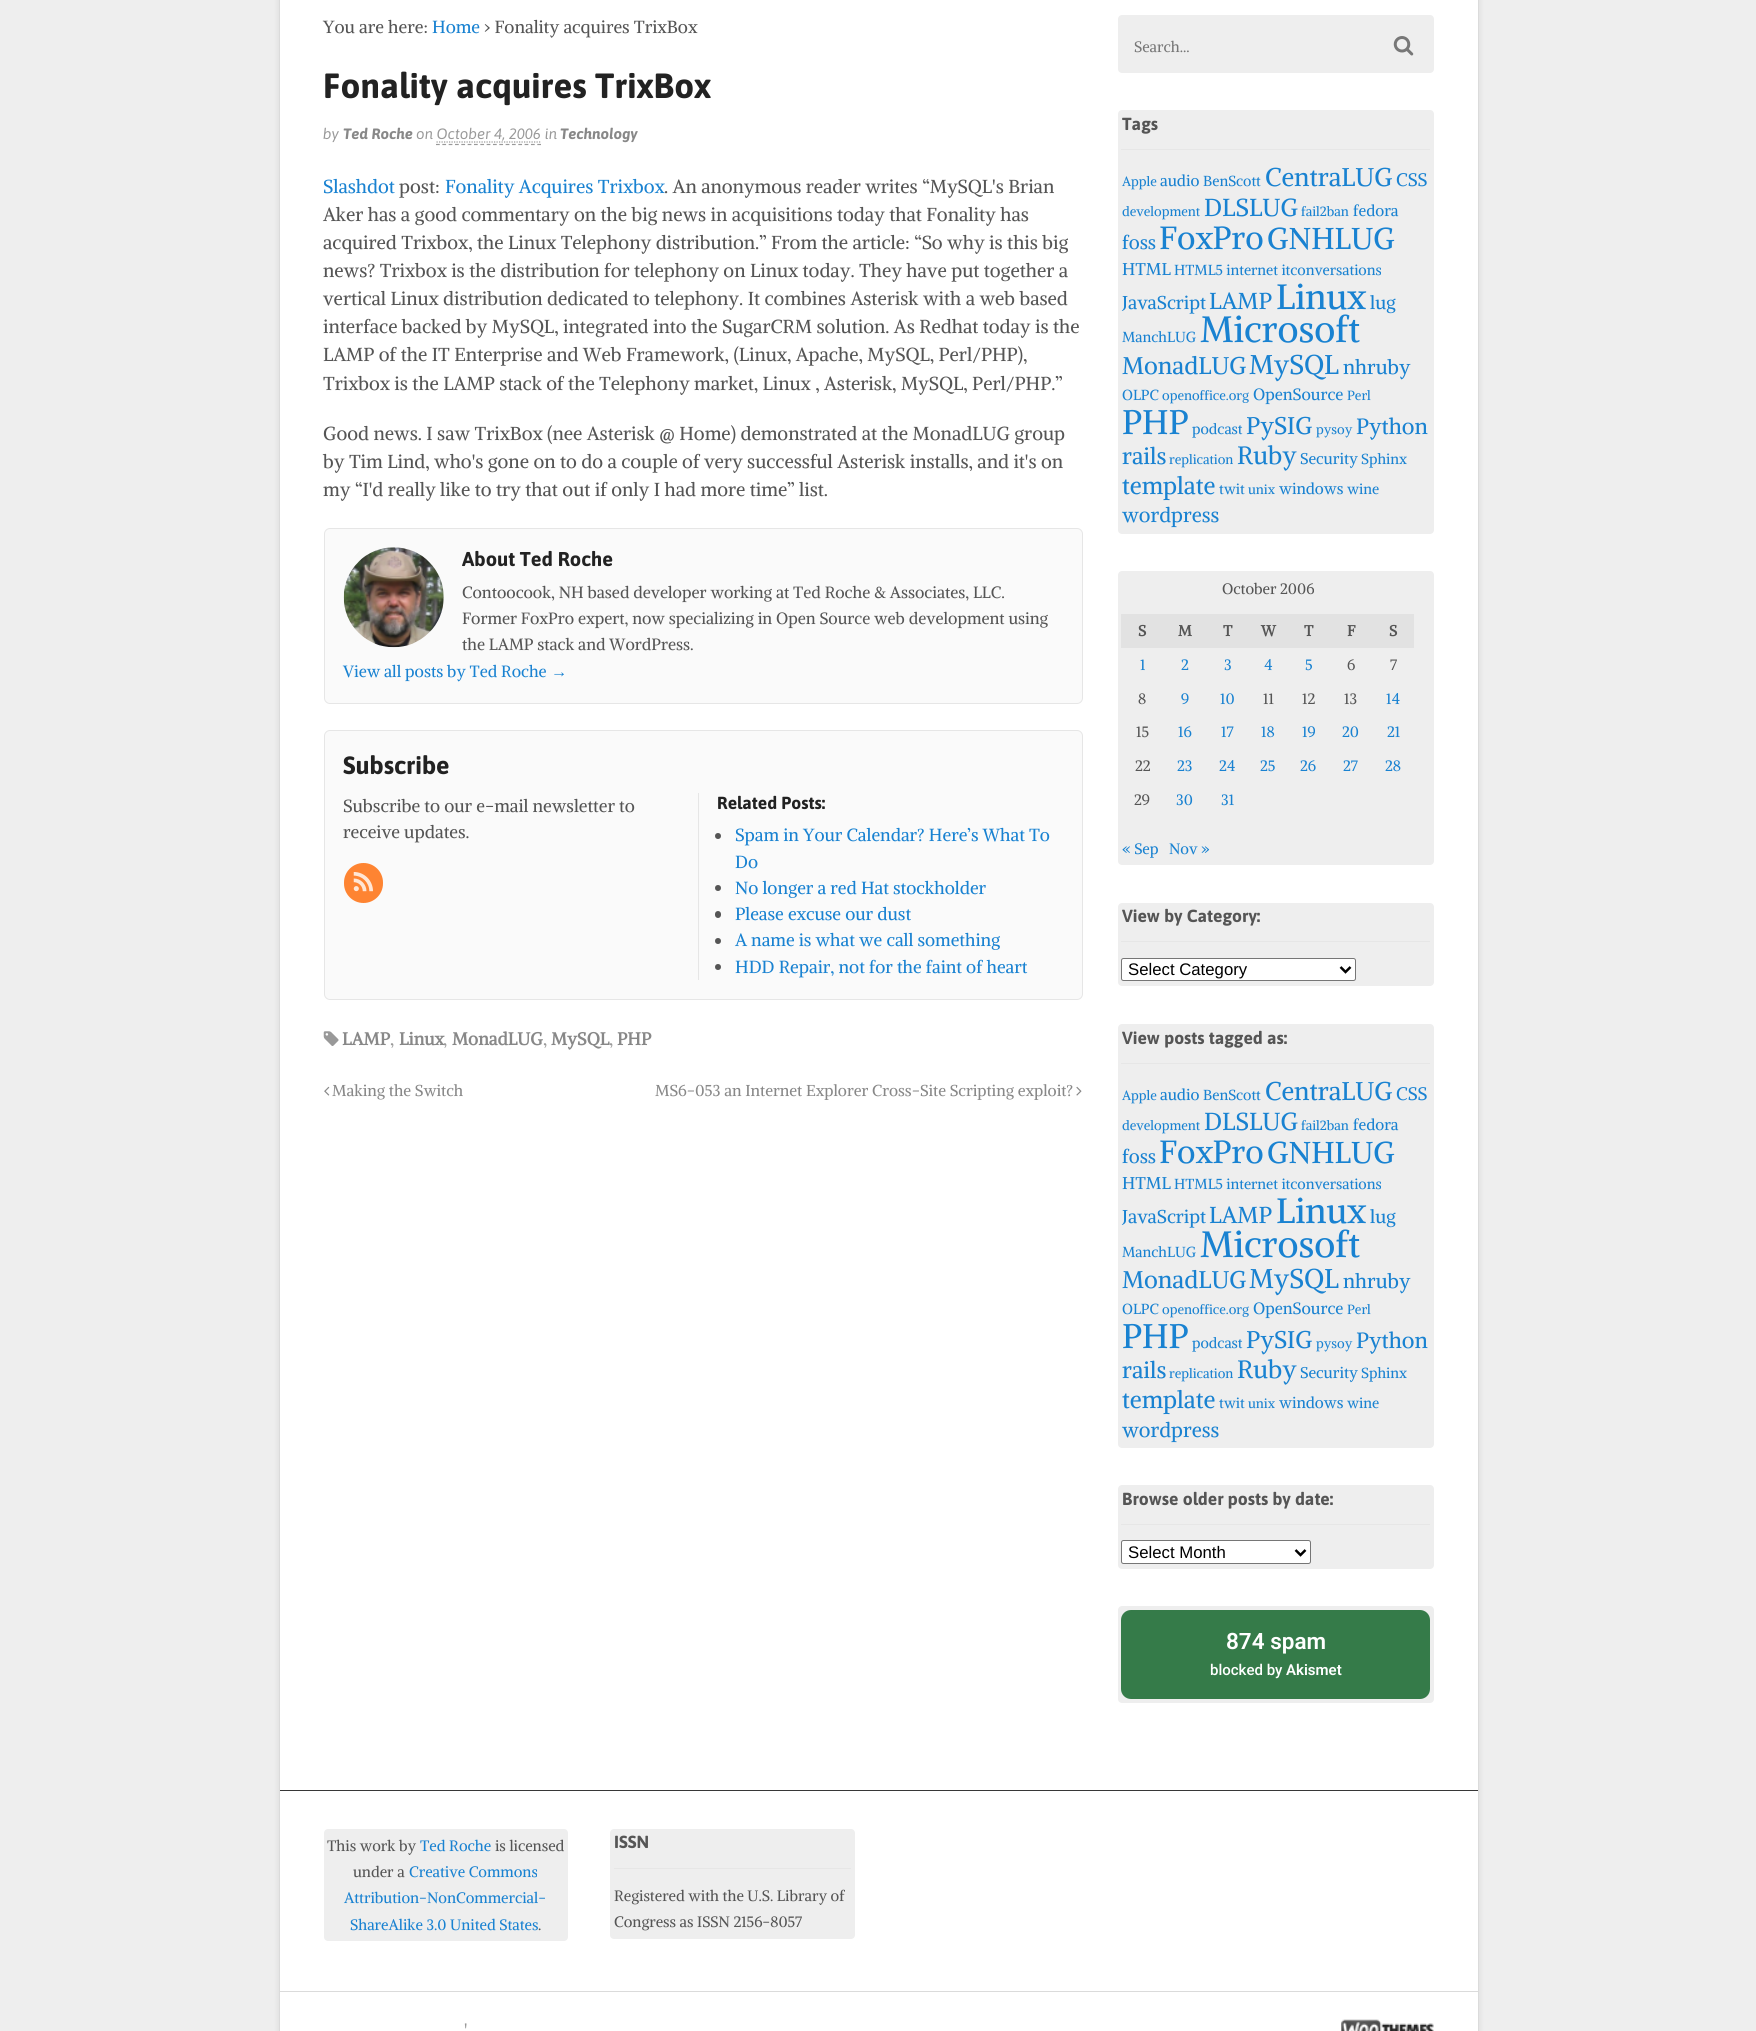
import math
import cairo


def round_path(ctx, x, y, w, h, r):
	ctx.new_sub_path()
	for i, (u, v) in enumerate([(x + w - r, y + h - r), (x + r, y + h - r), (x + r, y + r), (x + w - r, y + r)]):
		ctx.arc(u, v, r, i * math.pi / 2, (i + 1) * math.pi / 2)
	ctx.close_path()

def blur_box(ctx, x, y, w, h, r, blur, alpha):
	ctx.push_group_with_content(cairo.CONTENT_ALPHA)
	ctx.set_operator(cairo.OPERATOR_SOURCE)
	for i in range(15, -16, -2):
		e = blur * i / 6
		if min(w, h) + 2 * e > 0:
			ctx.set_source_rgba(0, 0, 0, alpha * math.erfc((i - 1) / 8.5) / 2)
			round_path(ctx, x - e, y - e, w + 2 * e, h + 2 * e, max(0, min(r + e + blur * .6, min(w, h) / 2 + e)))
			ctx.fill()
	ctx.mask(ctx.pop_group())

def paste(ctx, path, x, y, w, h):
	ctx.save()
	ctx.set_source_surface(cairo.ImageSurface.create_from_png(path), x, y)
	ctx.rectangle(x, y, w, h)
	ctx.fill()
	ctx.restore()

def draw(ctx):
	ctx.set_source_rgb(0.933, 0.933, 0.933)
	ctx.paint()
	ctx.set_source_rgb(0, 0, 0)
	blur_box(ctx, 279, -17, 1200, 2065, 8, 3, 0.1)
	ctx.set_source_rgb(1, 1, 1)
	ctx.rectangle(279.5, -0.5, 1199, 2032)
	ctx.fill_preserve()
	ctx.set_source_rgb(0.859, 0.859, 0.859)
	ctx.set_line_width(1)
	ctx.stroke()
	ctx.select_font_face('Alike')
	ctx.set_font_size(17.5)
	ctx.set_source_rgb(0.333, 0.333, 0.333)
	ctx.move_to(323, 33)
	ctx.show_text('You are here:')
	ctx.set_source_rgb(0.098, 0.51, 0.82)
	ctx.move_to(432, 33)
	ctx.show_text('Home')
	ctx.set_source_rgb(0.333, 0.333, 0.333)
	ctx.move_to(484, 33)
	ctx.show_text('› Fonality acquires TrixBox')
	ctx.select_font_face('Asap', cairo.FONT_SLANT_NORMAL, cairo.FONT_WEIGHT_BOLD)
	ctx.set_font_size(35)
	ctx.set_source_rgb(0.133, 0.133, 0.133)
	ctx.move_to(323, 98)
	ctx.show_text('Fonality acquires TrixBox')
	ctx.select_font_face('Asap', cairo.FONT_SLANT_ITALIC)
	ctx.set_font_size(15)
	ctx.set_source_rgb(0.6, 0.6, 0.6)
	ctx.move_to(323, 139)
	ctx.show_text('by')
	ctx.select_font_face('Asap', cairo.FONT_SLANT_ITALIC, cairo.FONT_WEIGHT_BOLD)
	ctx.set_source_rgb(0.533, 0.533, 0.533)
	ctx.move_to(343, 139)
	ctx.show_text('Ted Roche')
	ctx.select_font_face('Asap', cairo.FONT_SLANT_ITALIC)
	ctx.set_source_rgb(0.6, 0.6, 0.6)
	ctx.move_to(416, 139)
	ctx.show_text('on October 4, 2006 in')
	ctx.select_font_face('Asap', cairo.FONT_SLANT_ITALIC, cairo.FONT_WEIGHT_BOLD)
	ctx.set_source_rgb(0.533, 0.533, 0.533)
	ctx.move_to(560, 139)
	ctx.show_text('Technology')
	ctx.new_path()
	ctx.move_to(436.5, 142)
	ctx.line_to(541, 142)
	ctx.set_source_rgb(0.6, 0.6, 0.6)
	ctx.set_line_width(1.2)
	ctx.set_dash([1.25, 1.25])
	ctx.stroke()
	ctx.new_path()
	ctx.move_to(436, 144.5)
	ctx.line_to(541, 144.5)
	ctx.set_dash([3.75, 2.58])
	ctx.stroke()
	ctx.select_font_face('Alike')
	ctx.set_font_size(18.75)
	ctx.set_source_rgb(0.098, 0.51, 0.82)
	ctx.move_to(323, 193)
	ctx.show_text('Slashdot')
	ctx.set_source_rgb(0.333, 0.333, 0.333)
	ctx.move_to(399, 193)
	ctx.show_text('post:')
	ctx.set_source_rgb(0.098, 0.51, 0.82)
	ctx.move_to(445, 193)
	ctx.show_text('Fonality Acquires Trixbox')
	ctx.set_source_rgb(0.333, 0.333, 0.333)
	for x, y, s in [
		(664, 193, '. An anonymous reader writes “MySQL\'s Brian'),
		(323, 221, 'Aker has a good commentary on the big news in acquisitions today that Fonality has'),
		(323, 249, 'acquired Trixbox, the Linux Telephony distribution.” From the article: “So why is this big'),
		(323, 277, 'news? Trixbox is the distribution for telephony on Linux today. They have put together a'),
		(323, 305, 'vertical Linux distribution dedicated to telephony. It combines Asterisk with a web based'),
		(323, 333, 'interface backed by MySQL, integrated into the SugarCRM solution. As Redhat today is the'),
		(323, 361, 'LAMP of the IT Enterprise and Web Framework, (Linux, Apache, MySQL, Perl/PHP),'),
		(323, 390, 'Trixbox is the LAMP stack of the Telephony market, Linux , Asterisk, MySQL, Perl/PHP.”'),
		(323, 440, 'Good news. I saw TrixBox (nee Asterisk @ Home) demonstrated at the MonadLUG group'),
		(323, 468, 'by Tim Lind, who\'s gone on to do a couple of very successful Asterisk installs, and it\'s on'),
		(323, 496, 'my “I\'d really like to try that out if only I had more time” list.'),
	]:
		ctx.move_to(x, y)
		ctx.show_text(s)
	ctx.set_source_rgb(0.98, 0.98, 0.98)
	round_path(ctx, 324.5, 528.5, 758, 175, 5.5)
	ctx.fill_preserve()
	ctx.set_source_rgb(0.902, 0.902, 0.902)
	ctx.set_line_width(1)
	ctx.set_dash([])
	ctx.stroke()
	paste(ctx, 'media/1.png', 343, 547, 101, 101)
	ctx.select_font_face('Asap', cairo.FONT_SLANT_NORMAL, cairo.FONT_WEIGHT_BOLD)
	ctx.set_font_size(20)
	ctx.set_source_rgb(0.133, 0.133, 0.133)
	ctx.move_to(462, 566)
	ctx.show_text('About Ted Roche')
	ctx.select_font_face('Alike')
	ctx.set_font_size(16.25)
	ctx.set_source_rgb(0.333, 0.333, 0.333)
	for x, y, s in [
		(462, 598, 'Contoocook, NH based developer working at Ted Roche & Associates, LLC.'),
		(462, 624, 'Former FoxPro expert, now specializing in Open Source web development using'),
		(462, 650, 'the LAMP stack and WordPress.'),
	]:
		ctx.move_to(x, y)
		ctx.show_text(s)
	ctx.set_source_rgb(0.098, 0.51, 0.82)
	ctx.move_to(343, 677)
	ctx.show_text('View all posts by Ted Roche')
	ctx.select_font_face('Liberation Sans')
	ctx.move_to(551, 677)
	ctx.show_text('→')
	ctx.set_source_rgb(0.98, 0.98, 0.98)
	round_path(ctx, 324.5, 730.5, 758, 269, 5.5)
	ctx.fill_preserve()
	ctx.set_source_rgb(0.902, 0.902, 0.902)
	ctx.stroke()
	ctx.select_font_face('Asap', cairo.FONT_SLANT_NORMAL, cairo.FONT_WEIGHT_BOLD)
	ctx.set_font_size(25)
	ctx.set_source_rgb(0.133, 0.133, 0.133)
	ctx.move_to(343, 774)
	ctx.show_text('Subscribe')
	ctx.select_font_face('Alike')
	ctx.set_font_size(17.5)
	ctx.set_source_rgb(0.333, 0.333, 0.333)
	ctx.move_to(343, 812)
	ctx.show_text('Subscribe to our e-mail newsletter to')
	ctx.move_to(343, 838)
	ctx.show_text('receive updates.')
	ctx.set_source_rgb(0.996, 0.518, 0.196)
	round_path(ctx, 344, 863, 39, 40, 19.5)
	ctx.fill()
	paste(ctx, 'media/2.png', 353, 872, 20, 20)
	ctx.set_source_rgb(0.902, 0.902, 0.902)
	ctx.rectangle(698, 793, 1, 187)
	ctx.fill()
	ctx.select_font_face('Asap', cairo.FONT_SLANT_NORMAL, cairo.FONT_WEIGHT_BOLD)
	ctx.set_source_rgb(0.133, 0.133, 0.133)
	ctx.move_to(717, 809)
	ctx.show_text('Related Posts:')
	ctx.set_source_rgb(0.333, 0.333, 0.333)
	ctx.new_path()
	ctx.arc(718, 836, 3, 0, 2 * math.pi)
	ctx.fill()
	ctx.select_font_face('Alike')
	ctx.set_source_rgb(0.098, 0.51, 0.82)
	ctx.move_to(735, 841)
	ctx.show_text('Spam in Your Calendar? Here’s What To')
	ctx.move_to(735, 868)
	ctx.show_text('Do')
	ctx.set_source_rgb(0.333, 0.333, 0.333)
	ctx.new_path()
	ctx.arc(718, 888, 3, 0, 2 * math.pi)
	ctx.fill()
	ctx.set_source_rgb(0.098, 0.51, 0.82)
	ctx.move_to(735, 894)
	ctx.show_text('No longer a red Hat stockholder')
	ctx.set_source_rgb(0.333, 0.333, 0.333)
	round_path(ctx, 715, 911, 6, 7, 3)
	ctx.fill()
	ctx.set_source_rgb(0.098, 0.51, 0.82)
	ctx.move_to(735, 920)
	ctx.show_text('Please excuse our dust')
	ctx.set_source_rgb(0.333, 0.333, 0.333)
	ctx.new_path()
	ctx.arc(718, 941, 3, 0, 2 * math.pi)
	ctx.fill()
	ctx.set_source_rgb(0.098, 0.51, 0.82)
	ctx.move_to(735, 946)
	ctx.show_text('A name is what we call something')
	ctx.set_source_rgb(0.333, 0.333, 0.333)
	ctx.new_path()
	ctx.arc(718, 967, 3, 0, 2 * math.pi)
	ctx.fill()
	ctx.set_source_rgb(0.098, 0.51, 0.82)
	ctx.move_to(735, 973)
	ctx.show_text('HDD Repair, not for the faint of heart')
	paste(ctx, 'media/3.png', 323, 1031, 16, 15)
	ctx.select_font_face('Alike', cairo.FONT_SLANT_NORMAL, cairo.FONT_WEIGHT_BOLD)
	ctx.set_source_rgb(0.533, 0.533, 0.533)
	ctx.move_to(342, 1045)
	ctx.show_text('LAMP')
	ctx.select_font_face('Alike')
	ctx.set_source_rgb(0.6, 0.6, 0.6)
	ctx.move_to(390, 1045)
	ctx.show_text(',')
	ctx.select_font_face('Alike', cairo.FONT_SLANT_NORMAL, cairo.FONT_WEIGHT_BOLD)
	ctx.set_source_rgb(0.533, 0.533, 0.533)
	ctx.move_to(399, 1045)
	ctx.show_text('Linux')
	ctx.select_font_face('Alike')
	ctx.set_source_rgb(0.6, 0.6, 0.6)
	ctx.move_to(443, 1045)
	ctx.show_text(',')
	ctx.select_font_face('Alike', cairo.FONT_SLANT_NORMAL, cairo.FONT_WEIGHT_BOLD)
	ctx.set_source_rgb(0.533, 0.533, 0.533)
	ctx.move_to(452, 1045)
	ctx.show_text('MonadLUG')
	ctx.select_font_face('Alike')
	ctx.set_source_rgb(0.6, 0.6, 0.6)
	ctx.move_to(543, 1045)
	ctx.show_text(',')
	ctx.select_font_face('Alike', cairo.FONT_SLANT_NORMAL, cairo.FONT_WEIGHT_BOLD)
	ctx.set_source_rgb(0.533, 0.533, 0.533)
	ctx.move_to(551, 1045)
	ctx.show_text('MySQL')
	ctx.select_font_face('Alike')
	ctx.set_source_rgb(0.6, 0.6, 0.6)
	ctx.move_to(609, 1045)
	ctx.show_text(',')
	ctx.select_font_face('Alike', cairo.FONT_SLANT_NORMAL, cairo.FONT_WEIGHT_BOLD)
	ctx.set_source_rgb(0.533, 0.533, 0.533)
	ctx.move_to(617, 1045)
	ctx.show_text('PHP')
	paste(ctx, 'media/4.png', 324, 1086, 6, 10)
	ctx.select_font_face('Alike')
	ctx.set_font_size(15.75)
	ctx.move_to(332, 1096)
	ctx.show_text('Making the Switch')
	ctx.move_to(655, 1096)
	ctx.show_text('MS6-053 an Internet Explorer Cross-Site Scripting exploit?')
	paste(ctx, 'media/5.png', 1076, 1086, 6, 10)
	ctx.set_source_rgb(0.933, 0.933, 0.933)
	round_path(ctx, 1118, 15, 316, 58, 4)
	ctx.fill()
	ctx.set_font_size(15)
	ctx.set_source_rgb(0.467, 0.467, 0.467)
	ctx.move_to(1134, 52)
	ctx.show_text('Search...')
	paste(ctx, 'media/6.png', 1393, 36, 21, 20)
	ctx.set_source_rgb(0.933, 0.933, 0.933)
	round_path(ctx, 1118, 110, 316, 424, 4)
	ctx.fill()
	ctx.set_source_rgb(0.902, 0.902, 0.902)
	ctx.rectangle(1121, 149, 309, 1)
	ctx.fill()
	ctx.select_font_face('Asap', cairo.FONT_SLANT_NORMAL, cairo.FONT_WEIGHT_BOLD)
	ctx.set_font_size(17.5)
	ctx.set_source_rgb(0.333, 0.333, 0.333)
	ctx.move_to(1122, 130)
	ctx.show_text('Tags')
	ctx.select_font_face('Alike')
	ctx.set_font_size(13.25)
	ctx.set_source_rgb(0.098, 0.51, 0.82)
	ctx.move_to(1122, 186)
	ctx.show_text('Apple')
	ctx.set_font_size(15.5)
	ctx.move_to(1160, 186)
	ctx.show_text('audio')
	ctx.set_font_size(14.5)
	ctx.move_to(1203, 186)
	ctx.show_text('BenScott')
	ctx.set_font_size(25.5)
	ctx.move_to(1265, 186)
	ctx.show_text('CentraLUG')
	ctx.set_font_size(18)
	ctx.move_to(1396, 186)
	ctx.show_text('CSS')
	ctx.set_font_size(13.25)
	ctx.move_to(1122, 216)
	ctx.show_text('development')
	ctx.set_font_size(24.5)
	ctx.move_to(1204, 216)
	ctx.show_text('DLSLUG')
	ctx.set_font_size(13.25)
	ctx.move_to(1301, 216)
	ctx.show_text('fail2ban')
	ctx.set_font_size(15.5)
	ctx.move_to(1353, 216)
	ctx.show_text('fedora')
	ctx.set_font_size(19)
	ctx.move_to(1122, 249)
	ctx.show_text('foss')
	ctx.set_font_size(32)
	ctx.move_to(1159, 249)
	ctx.show_text('FoxPro')
	ctx.set_font_size(30)
	ctx.move_to(1267, 249)
	ctx.show_text('GNHLUG')
	ctx.set_font_size(17)
	ctx.move_to(1122, 275)
	ctx.show_text('HTML')
	ctx.set_font_size(14.5)
	ctx.move_to(1174, 275)
	ctx.show_text('HTML5 internet itconversations')
	ctx.set_font_size(18.5)
	ctx.move_to(1122, 309)
	ctx.show_text('JavaScript')
	ctx.set_font_size(23)
	ctx.move_to(1209, 309)
	ctx.show_text('LAMP')
	ctx.set_font_size(35)
	ctx.move_to(1276, 309)
	ctx.show_text('Linux')
	ctx.set_font_size(18.5)
	ctx.move_to(1370, 309)
	ctx.show_text('lug')
	ctx.set_font_size(14.5)
	ctx.move_to(1122, 342)
	ctx.show_text('ManchLUG')
	ctx.set_font_size(36.5)
	ctx.move_to(1200, 342)
	ctx.show_text('Microsoft')
	ctx.set_font_size(24)
	ctx.move_to(1122, 374)
	ctx.show_text('MonadLUG')
	ctx.set_font_size(27)
	ctx.move_to(1249, 374)
	ctx.show_text('MySQL')
	ctx.set_font_size(20)
	ctx.move_to(1343, 374)
	ctx.show_text('nhruby')
	ctx.set_font_size(14.5)
	ctx.move_to(1122, 400)
	ctx.show_text('OLPC')
	ctx.set_font_size(13.25)
	ctx.move_to(1162, 400)
	ctx.show_text('openoffice.org')
	ctx.set_font_size(16.25)
	ctx.move_to(1253, 400)
	ctx.show_text('OpenSource')
	ctx.set_font_size(13.25)
	ctx.move_to(1347, 400)
	ctx.show_text('Perl')
	ctx.set_font_size(34)
	ctx.move_to(1122, 434)
	ctx.show_text('PHP')
	ctx.set_font_size(14.5)
	ctx.move_to(1192, 434)
	ctx.show_text('podcast')
	ctx.set_font_size(24)
	ctx.move_to(1246, 434)
	ctx.show_text('PySIG')
	ctx.set_font_size(13.25)
	ctx.move_to(1316, 434)
	ctx.show_text('pysoy')
	ctx.set_font_size(22)
	ctx.move_to(1356, 434)
	ctx.show_text('Python')
	ctx.set_font_size(23)
	ctx.move_to(1122, 464)
	ctx.show_text('rails')
	ctx.set_font_size(13.25)
	ctx.move_to(1169, 464)
	ctx.show_text('replication')
	ctx.set_font_size(25)
	ctx.move_to(1237, 464)
	ctx.show_text('Ruby')
	ctx.set_font_size(15.5)
	ctx.move_to(1300, 464)
	ctx.show_text('Security')
	ctx.set_font_size(14.5)
	ctx.move_to(1361, 464)
	ctx.show_text('Sphinx')
	ctx.set_font_size(24)
	ctx.move_to(1122, 494)
	ctx.show_text('template')
	ctx.set_font_size(14.5)
	ctx.move_to(1219, 494)
	ctx.show_text('twit')
	ctx.set_font_size(13.25)
	ctx.move_to(1248, 494)
	ctx.show_text('unix')
	ctx.set_font_size(15.5)
	ctx.move_to(1279, 494)
	ctx.show_text('windows')
	ctx.set_font_size(14.5)
	ctx.move_to(1347, 494)
	ctx.show_text('wine')
	ctx.set_font_size(20.25)
	ctx.move_to(1122, 522)
	ctx.show_text('wordpress')
	ctx.set_source_rgb(0.933, 0.933, 0.933)
	round_path(ctx, 1118, 571, 316, 294, 4)
	ctx.fill()
	ctx.set_font_size(15)
	ctx.set_source_rgb(0.333, 0.333, 0.333)
	ctx.move_to(1222, 594)
	ctx.show_text('October 2006')
	ctx.set_source_rgb(0.886, 0.886, 0.886)
	ctx.rectangle(1121, 614, 293, 34)
	ctx.fill()
	ctx.select_font_face('Alike', cairo.FONT_SLANT_NORMAL, cairo.FONT_WEIGHT_BOLD)
	ctx.set_source_rgb(0.333, 0.333, 0.333)
	for x, y, s in [
		(1138, 636, 'S'),
		(1178, 636, 'M'),
		(1223, 636, 'T'),
		(1261, 636, 'W'),
		(1304, 636, 'T'),
		(1347, 636, 'F'),
		(1389, 636, 'S'),
	]:
		ctx.move_to(x, y)
		ctx.show_text(s)
	ctx.select_font_face('Alike')
	ctx.set_source_rgb(0.098, 0.51, 0.82)
	for x, y, s in [
		(1140, 670, '1'),
		(1181, 670, '2'),
		(1224, 670, '3'),
		(1264, 670, '4'),
		(1305, 670, '5'),
	]:
		ctx.move_to(x, y)
		ctx.show_text(s)
	ctx.set_source_rgb(0.333, 0.333, 0.333)
	for x, y, s in [
		(1347, 670, '6'),
		(1390, 670, '7'),
		(1138, 704, '8'),
	]:
		ctx.move_to(x, y)
		ctx.show_text(s)
	ctx.set_source_rgb(0.098, 0.51, 0.82)
	ctx.move_to(1181, 704)
	ctx.show_text('9')
	ctx.move_to(1220, 704)
	ctx.show_text('10')
	ctx.set_source_rgb(0.333, 0.333, 0.333)
	for x, y, s in [
		(1263, 704, '11'),
		(1302, 704, '12'),
		(1344, 704, '13'),
	]:
		ctx.move_to(x, y)
		ctx.show_text(s)
	ctx.set_source_rgb(0.098, 0.51, 0.82)
	ctx.move_to(1386, 704)
	ctx.show_text('14')
	ctx.set_source_rgb(0.333, 0.333, 0.333)
	ctx.move_to(1136, 737)
	ctx.show_text('15')
	ctx.set_source_rgb(0.098, 0.51, 0.82)
	for x, y, s in [
		(1178, 737, '16'),
		(1221, 737, '17'),
		(1261, 737, '18'),
		(1302, 737, '19'),
		(1342, 737, '20'),
		(1387, 737, '21'),
	]:
		ctx.move_to(x, y)
		ctx.show_text(s)
	ctx.set_source_rgb(0.333, 0.333, 0.333)
	ctx.move_to(1135, 771)
	ctx.show_text('22')
	ctx.set_source_rgb(0.098, 0.51, 0.82)
	for x, y, s in [
		(1177, 771, '23'),
		(1219, 771, '24'),
		(1260, 771, '25'),
		(1300, 771, '26'),
		(1343, 771, '27'),
		(1385, 771, '28'),
	]:
		ctx.move_to(x, y)
		ctx.show_text(s)
	ctx.set_source_rgb(0.333, 0.333, 0.333)
	ctx.move_to(1134, 805)
	ctx.show_text('29')
	ctx.set_source_rgb(0.098, 0.51, 0.82)
	for x, y, s in [
		(1176, 805, '30'),
		(1221, 805, '31'),
		(1122, 854, '« Sep'),
		(1169, 854, 'Nov »'),
	]:
		ctx.move_to(x, y)
		ctx.show_text(s)
	ctx.set_source_rgb(0.933, 0.933, 0.933)
	round_path(ctx, 1118, 903, 316, 83, 4)
	ctx.fill()
	ctx.set_source_rgb(0.902, 0.902, 0.902)
	ctx.rectangle(1121, 941, 309, 1)
	ctx.fill()
	ctx.select_font_face('Asap', cairo.FONT_SLANT_NORMAL, cairo.FONT_WEIGHT_BOLD)
	ctx.set_font_size(17.5)
	ctx.set_source_rgb(0.333, 0.333, 0.333)
	ctx.move_to(1122, 922)
	ctx.show_text('View by Category:')
	ctx.set_source_rgb(1, 1, 1)
	round_path(ctx, 1121.5, 958.5, 234, 22, 2)
	ctx.fill_preserve()
	ctx.set_source_rgb(0.463, 0.463, 0.463)
	ctx.stroke()
	ctx.new_path()
	ctx.move_to(1340.5, 967)
	ctx.line_to(1345.5, 972)
	ctx.line_to(1350.5, 967)
	ctx.set_source_rgb(0, 0, 0)
	ctx.set_line_width(2.5)
	ctx.stroke()
	ctx.select_font_face('Liberation Sans')
	ctx.set_font_size(16.75)
	ctx.move_to(1128, 975)
	ctx.show_text('Select Category')
	ctx.set_source_rgb(0.933, 0.933, 0.933)
	round_path(ctx, 1118, 1024, 316, 424, 4)
	ctx.fill()
	ctx.set_source_rgb(0.902, 0.902, 0.902)
	ctx.rectangle(1121, 1063, 309, 1)
	ctx.fill()
	ctx.select_font_face('Asap', cairo.FONT_SLANT_NORMAL, cairo.FONT_WEIGHT_BOLD)
	ctx.set_font_size(17.5)
	ctx.set_source_rgb(0.333, 0.333, 0.333)
	ctx.move_to(1122, 1044)
	ctx.show_text('View posts tagged as:')
	ctx.select_font_face('Alike')
	ctx.set_font_size(13.25)
	ctx.set_source_rgb(0.098, 0.51, 0.82)
	ctx.move_to(1122, 1100)
	ctx.show_text('Apple')
	ctx.set_font_size(15.5)
	ctx.move_to(1160, 1100)
	ctx.show_text('audio')
	ctx.set_font_size(14.5)
	ctx.move_to(1203, 1100)
	ctx.show_text('BenScott')
	ctx.set_font_size(25.5)
	ctx.move_to(1265, 1100)
	ctx.show_text('CentraLUG')
	ctx.set_font_size(18)
	ctx.move_to(1396, 1100)
	ctx.show_text('CSS')
	ctx.set_font_size(13.25)
	ctx.move_to(1122, 1130)
	ctx.show_text('development')
	ctx.set_font_size(24.5)
	ctx.move_to(1204, 1130)
	ctx.show_text('DLSLUG')
	ctx.set_font_size(13.25)
	ctx.move_to(1301, 1130)
	ctx.show_text('fail2ban')
	ctx.set_font_size(15.5)
	ctx.move_to(1353, 1130)
	ctx.show_text('fedora')
	ctx.set_font_size(19)
	ctx.move_to(1122, 1163)
	ctx.show_text('foss')
	ctx.set_font_size(32)
	ctx.move_to(1159, 1163)
	ctx.show_text('FoxPro')
	ctx.set_font_size(30)
	ctx.move_to(1267, 1163)
	ctx.show_text('GNHLUG')
	ctx.set_font_size(17)
	ctx.move_to(1122, 1189)
	ctx.show_text('HTML')
	ctx.set_font_size(14.5)
	ctx.move_to(1174, 1189)
	ctx.show_text('HTML5 internet itconversations')
	ctx.set_font_size(18.5)
	ctx.move_to(1122, 1223)
	ctx.show_text('JavaScript')
	ctx.set_font_size(23)
	ctx.move_to(1209, 1223)
	ctx.show_text('LAMP')
	ctx.set_font_size(35)
	ctx.move_to(1276, 1223)
	ctx.show_text('Linux')
	ctx.set_font_size(18.5)
	ctx.move_to(1370, 1223)
	ctx.show_text('lug')
	ctx.set_font_size(14.5)
	ctx.move_to(1122, 1257)
	ctx.show_text('ManchLUG')
	ctx.set_font_size(36.5)
	ctx.move_to(1200, 1257)
	ctx.show_text('Microsoft')
	ctx.set_font_size(24)
	ctx.move_to(1122, 1288)
	ctx.show_text('MonadLUG')
	ctx.set_font_size(27)
	ctx.move_to(1249, 1288)
	ctx.show_text('MySQL')
	ctx.set_font_size(20)
	ctx.move_to(1343, 1288)
	ctx.show_text('nhruby')
	ctx.set_font_size(14.5)
	ctx.move_to(1122, 1314)
	ctx.show_text('OLPC')
	ctx.set_font_size(13.25)
	ctx.move_to(1162, 1314)
	ctx.show_text('openoffice.org')
	ctx.set_font_size(16.25)
	ctx.move_to(1253, 1314)
	ctx.show_text('OpenSource')
	ctx.set_font_size(13.25)
	ctx.move_to(1347, 1314)
	ctx.show_text('Perl')
	ctx.set_font_size(34)
	ctx.move_to(1122, 1348)
	ctx.show_text('PHP')
	ctx.set_font_size(14.5)
	ctx.move_to(1192, 1348)
	ctx.show_text('podcast')
	ctx.set_font_size(24)
	ctx.move_to(1246, 1348)
	ctx.show_text('PySIG')
	ctx.set_font_size(13.25)
	ctx.move_to(1316, 1348)
	ctx.show_text('pysoy')
	ctx.set_font_size(22)
	ctx.move_to(1356, 1348)
	ctx.show_text('Python')
	ctx.set_font_size(23)
	ctx.move_to(1122, 1378)
	ctx.show_text('rails')
	ctx.set_font_size(13.25)
	ctx.move_to(1169, 1378)
	ctx.show_text('replication')
	ctx.set_font_size(25)
	ctx.move_to(1237, 1378)
	ctx.show_text('Ruby')
	ctx.set_font_size(15.5)
	ctx.move_to(1300, 1378)
	ctx.show_text('Security')
	ctx.set_font_size(14.5)
	ctx.move_to(1361, 1378)
	ctx.show_text('Sphinx')
	ctx.set_font_size(24)
	ctx.move_to(1122, 1408)
	ctx.show_text('template')
	ctx.set_font_size(14.5)
	ctx.move_to(1219, 1408)
	ctx.show_text('twit')
	ctx.set_font_size(13.25)
	ctx.move_to(1248, 1408)
	ctx.show_text('unix')
	ctx.set_font_size(15.5)
	ctx.move_to(1279, 1408)
	ctx.show_text('windows')
	ctx.set_font_size(14.5)
	ctx.move_to(1347, 1408)
	ctx.show_text('wine')
	ctx.set_font_size(20.25)
	ctx.move_to(1122, 1437)
	ctx.show_text('wordpress')
	ctx.set_source_rgb(0.933, 0.933, 0.933)
	round_path(ctx, 1118, 1485, 316, 84, 4)
	ctx.fill()
	ctx.set_source_rgb(0.902, 0.902, 0.902)
	ctx.rectangle(1121, 1524, 309, 1)
	ctx.fill()
	ctx.select_font_face('Asap', cairo.FONT_SLANT_NORMAL, cairo.FONT_WEIGHT_BOLD)
	ctx.set_font_size(17.5)
	ctx.set_source_rgb(0.333, 0.333, 0.333)
	ctx.move_to(1122, 1505)
	ctx.show_text('Browse older posts by date:')
	ctx.set_source_rgb(1, 1, 1)
	round_path(ctx, 1121.5, 1540.5, 189, 23, 2)
	ctx.fill_preserve()
	ctx.set_source_rgb(0.463, 0.463, 0.463)
	ctx.set_line_width(1)
	ctx.stroke()
	ctx.new_path()
	ctx.move_to(1295.5, 1550)
	ctx.line_to(1300.5, 1555)
	ctx.line_to(1305.5, 1550)
	ctx.set_source_rgb(0, 0, 0)
	ctx.set_line_width(2.5)
	ctx.stroke()
	ctx.select_font_face('Liberation Sans')
	ctx.set_font_size(16.75)
	ctx.move_to(1128, 1558)
	ctx.show_text('Select Month')
	ctx.set_source_rgb(0.933, 0.933, 0.933)
	round_path(ctx, 1118, 1606, 316, 97, 4)
	ctx.fill()
	ctx.set_source_rgb(0.208, 0.482, 0.286)
	round_path(ctx, 1121, 1610, 309, 89, 10)
	ctx.fill()
	ctx.select_font_face('Roboto SemiBold')
	ctx.set_font_size(22.5)
	ctx.set_source_rgb(1, 1, 1)
	ctx.move_to(1226, 1649)
	ctx.show_text('874 spam')
	ctx.select_font_face('Roboto Medium')
	ctx.set_font_size(15)
	ctx.move_to(1210, 1675)
	ctx.show_text('blocked by')
	ctx.select_font_face('Roboto SemiBold')
	ctx.move_to(1286, 1675)
	ctx.show_text('Akismet')
	ctx.set_source_rgb(0.216, 0.216, 0.216)
	ctx.rectangle(280, 1790, 1198, 1)
	ctx.fill()
	ctx.set_source_rgb(0.933, 0.933, 0.933)
	round_path(ctx, 324, 1829, 244, 112, 4)
	ctx.fill()
	ctx.select_font_face('Alike')
	ctx.set_source_rgb(0.333, 0.333, 0.333)
	ctx.move_to(327, 1851)
	ctx.show_text('This work by')
	ctx.set_source_rgb(0.098, 0.51, 0.82)
	ctx.move_to(420, 1851)
	ctx.show_text('Ted Roche')
	ctx.set_source_rgb(0.333, 0.333, 0.333)
	ctx.move_to(495, 1851)
	ctx.show_text('is licensed')
	ctx.move_to(353, 1877)
	ctx.show_text('under a')
	ctx.set_source_rgb(0.098, 0.51, 0.82)
	for x, y, s in [
		(409, 1877, 'Creative Commons'),
		(344, 1903, 'Attribution-NonCommercial-'),
		(350, 1930, 'ShareAlike 3.0 United States'),
	]:
		ctx.move_to(x, y)
		ctx.show_text(s)
	ctx.set_source_rgb(0.333, 0.333, 0.333)
	ctx.move_to(538, 1930)
	ctx.show_text('.')
	ctx.set_source_rgb(0.933, 0.933, 0.933)
	round_path(ctx, 610, 1829, 245, 110, 4)
	ctx.fill()
	ctx.set_source_rgb(0.902, 0.902, 0.902)
	ctx.rectangle(614, 1868, 237, 1)
	ctx.fill()
	ctx.select_font_face('Asap', cairo.FONT_SLANT_NORMAL, cairo.FONT_WEIGHT_BOLD)
	ctx.set_font_size(17.5)
	ctx.set_source_rgb(0.333, 0.333, 0.333)
	ctx.move_to(614, 1848)
	ctx.show_text('ISSN')
	ctx.select_font_face('Alike')
	ctx.set_font_size(15)
	ctx.move_to(614, 1901)
	ctx.show_text('Registered with the U.S. Library of')
	ctx.move_to(614, 1927)
	ctx.show_text('Congress as ISSN 2156-8057')
	ctx.set_source_rgb(0.859, 0.859, 0.859)
	ctx.rectangle(280, 1991, 1198, 1)
	ctx.fill()
	ctx.set_font_size(17.5)
	ctx.set_source_rgb(0.6, 0.6, 0.6)
	ctx.move_to(464, 2036)
	ctx.show_text('\'')
	paste(ctx, 'media/7.png', 1341, 2019, 93, 12)


surface = cairo.ImageSurface(cairo.FORMAT_RGB24, 1756, 2031)
ctx = cairo.Context(surface)
options = cairo.FontOptions()
options.set_hint_metrics(cairo.HINT_METRICS_OFF)
options.set_hint_style(cairo.HINT_STYLE_NONE)
ctx.set_font_options(options)
ctx.set_miter_limit(4)
draw(ctx)
surface.write_to_png('image.png')
